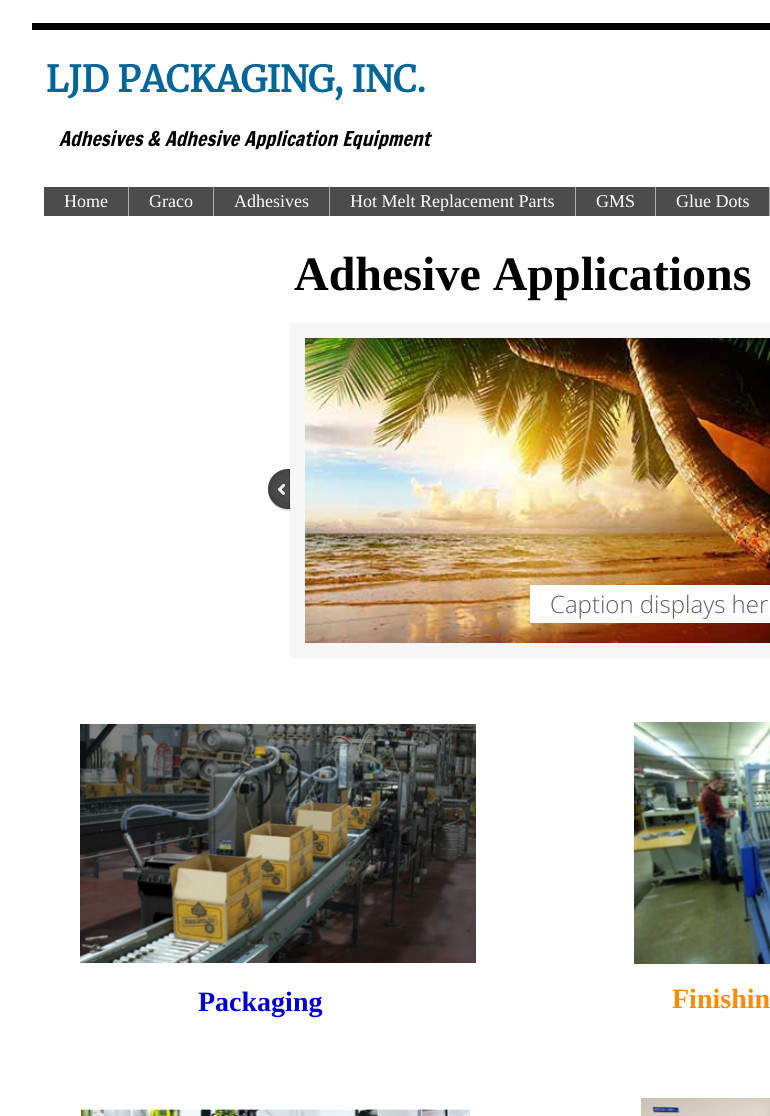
import math
import cairo


def paste(ctx, path, x, y, w, h):
	ctx.save()
	ctx.set_source_surface(cairo.ImageSurface.create_from_png(path), x, y)
	ctx.rectangle(x, y, w, h)
	ctx.fill()
	ctx.restore()

def draw(ctx):
	ctx.set_source_rgb(1, 1, 1)
	ctx.paint()
	ctx.set_source_rgb(0, 0, 0)
	ctx.rectangle(32, 23, 738, 7)
	ctx.fill()
	ctx.select_font_face('Merriweather', cairo.FONT_SLANT_NORMAL, cairo.FONT_WEIGHT_BOLD)
	ctx.set_font_size(36)
	ctx.set_source_rgb(0, 0.4, 0.6)
	ctx.move_to(46, 92)
	ctx.show_text('LJD PACKAGING, INC.')
	ctx.select_font_face('Francois One', cairo.FONT_SLANT_ITALIC)
	ctx.set_font_size(20)
	ctx.set_source_rgb(0, 0, 0)
	ctx.move_to(59, 146)
	ctx.show_text('Adhesives & Adhesive Application Equipment')
	ctx.set_source_rgb(0.298, 0.298, 0.298)
	ctx.rectangle(44, 187, 84, 29)
	ctx.fill()
	ctx.set_source_rgb(0.682, 0.682, 0.682)
	ctx.rectangle(128, 187, 1, 29)
	ctx.fill()
	ctx.select_font_face('Liberation Serif')
	ctx.set_font_size(18)
	ctx.set_source_rgb(1, 1, 1)
	ctx.move_to(64, 207)
	ctx.show_text('Home')
	ctx.set_source_rgb(0.298, 0.298, 0.298)
	ctx.rectangle(129, 187, 84, 29)
	ctx.fill()
	ctx.set_source_rgb(0.682, 0.682, 0.682)
	ctx.rectangle(213, 187, 1, 29)
	ctx.fill()
	ctx.set_source_rgb(1, 1, 1)
	ctx.move_to(149, 207)
	ctx.show_text('Graco')
	ctx.set_source_rgb(0.298, 0.298, 0.298)
	ctx.rectangle(214, 187, 115, 29)
	ctx.fill()
	ctx.set_source_rgb(0.682, 0.682, 0.682)
	ctx.rectangle(329, 187, 1, 29)
	ctx.fill()
	ctx.set_source_rgb(1, 1, 1)
	ctx.move_to(234, 207)
	ctx.show_text('Adhesives')
	ctx.set_source_rgb(0.298, 0.298, 0.298)
	ctx.rectangle(330, 187, 245, 29)
	ctx.fill()
	ctx.set_source_rgb(0.682, 0.682, 0.682)
	ctx.rectangle(575, 187, 1, 29)
	ctx.fill()
	ctx.set_source_rgb(1, 1, 1)
	ctx.move_to(350, 207)
	ctx.show_text('Hot Melt Replacement Parts')
	ctx.set_source_rgb(0.298, 0.298, 0.298)
	ctx.rectangle(576, 187, 79, 29)
	ctx.fill()
	ctx.set_source_rgb(0.682, 0.682, 0.682)
	ctx.rectangle(655, 187, 1, 29)
	ctx.fill()
	ctx.set_source_rgb(1, 1, 1)
	ctx.move_to(596, 207)
	ctx.show_text('GMS')
	ctx.set_source_rgb(0.298, 0.298, 0.298)
	ctx.rectangle(656, 187, 113, 29)
	ctx.fill()
	ctx.set_source_rgb(0.682, 0.682, 0.682)
	ctx.rectangle(769, 187, 1, 29)
	ctx.fill()
	ctx.set_source_rgb(1, 1, 1)
	ctx.move_to(676, 207)
	ctx.show_text('Glue Dots')
	ctx.select_font_face('Liberation Serif', cairo.FONT_SLANT_NORMAL, cairo.FONT_WEIGHT_BOLD)
	ctx.set_font_size(48)
	ctx.set_source_rgb(0, 0, 0)
	ctx.move_to(294, 290)
	ctx.show_text('Adhesive Applications')
	paste(ctx, 'media/1.png', 268, 469, 22, 42)
	ctx.rectangle(297.5, 330.5, 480, 320)
	ctx.set_source_rgb(0.961, 0.961, 0.961)
	ctx.set_line_width(15)
	ctx.stroke()
	paste(ctx, 'media/2.png', 305, 338, 465, 305)
	ctx.set_source_rgb(1, 1, 1)
	ctx.rectangle(530, 585, 240, 38)
	ctx.fill()
	ctx.select_font_face('Open Sans Light')
	ctx.set_font_size(24)
	ctx.set_source_rgb(0.38, 0.376, 0.376)
	ctx.move_to(550, 613)
	ctx.show_text('Caption displays her')
	paste(ctx, 'media/3.png', 80, 724, 396, 239)
	paste(ctx, 'media/4.png', 634, 722, 136, 242)
	ctx.select_font_face('Liberation Serif', cairo.FONT_SLANT_NORMAL, cairo.FONT_WEIGHT_BOLD)
	ctx.set_font_size(28)
	ctx.set_source_rgb(0, 0, 0.804)
	ctx.move_to(198, 1011)
	ctx.show_text('Packaging')
	ctx.set_source_rgb(1, 0.549, 0)
	ctx.move_to(672, 1008)
	ctx.show_text('Finishin')
	paste(ctx, 'media/5.png', 81, 1109, 389, 7)
	paste(ctx, 'media/6.png', 641, 1098, 129, 18)


surface = cairo.ImageSurface(cairo.FORMAT_RGB24, 770, 1116)
ctx = cairo.Context(surface)
options = cairo.FontOptions()
options.set_hint_metrics(cairo.HINT_METRICS_OFF)
options.set_hint_style(cairo.HINT_STYLE_NONE)
ctx.set_font_options(options)
ctx.set_miter_limit(4)
draw(ctx)
surface.write_to_png('image.png')
